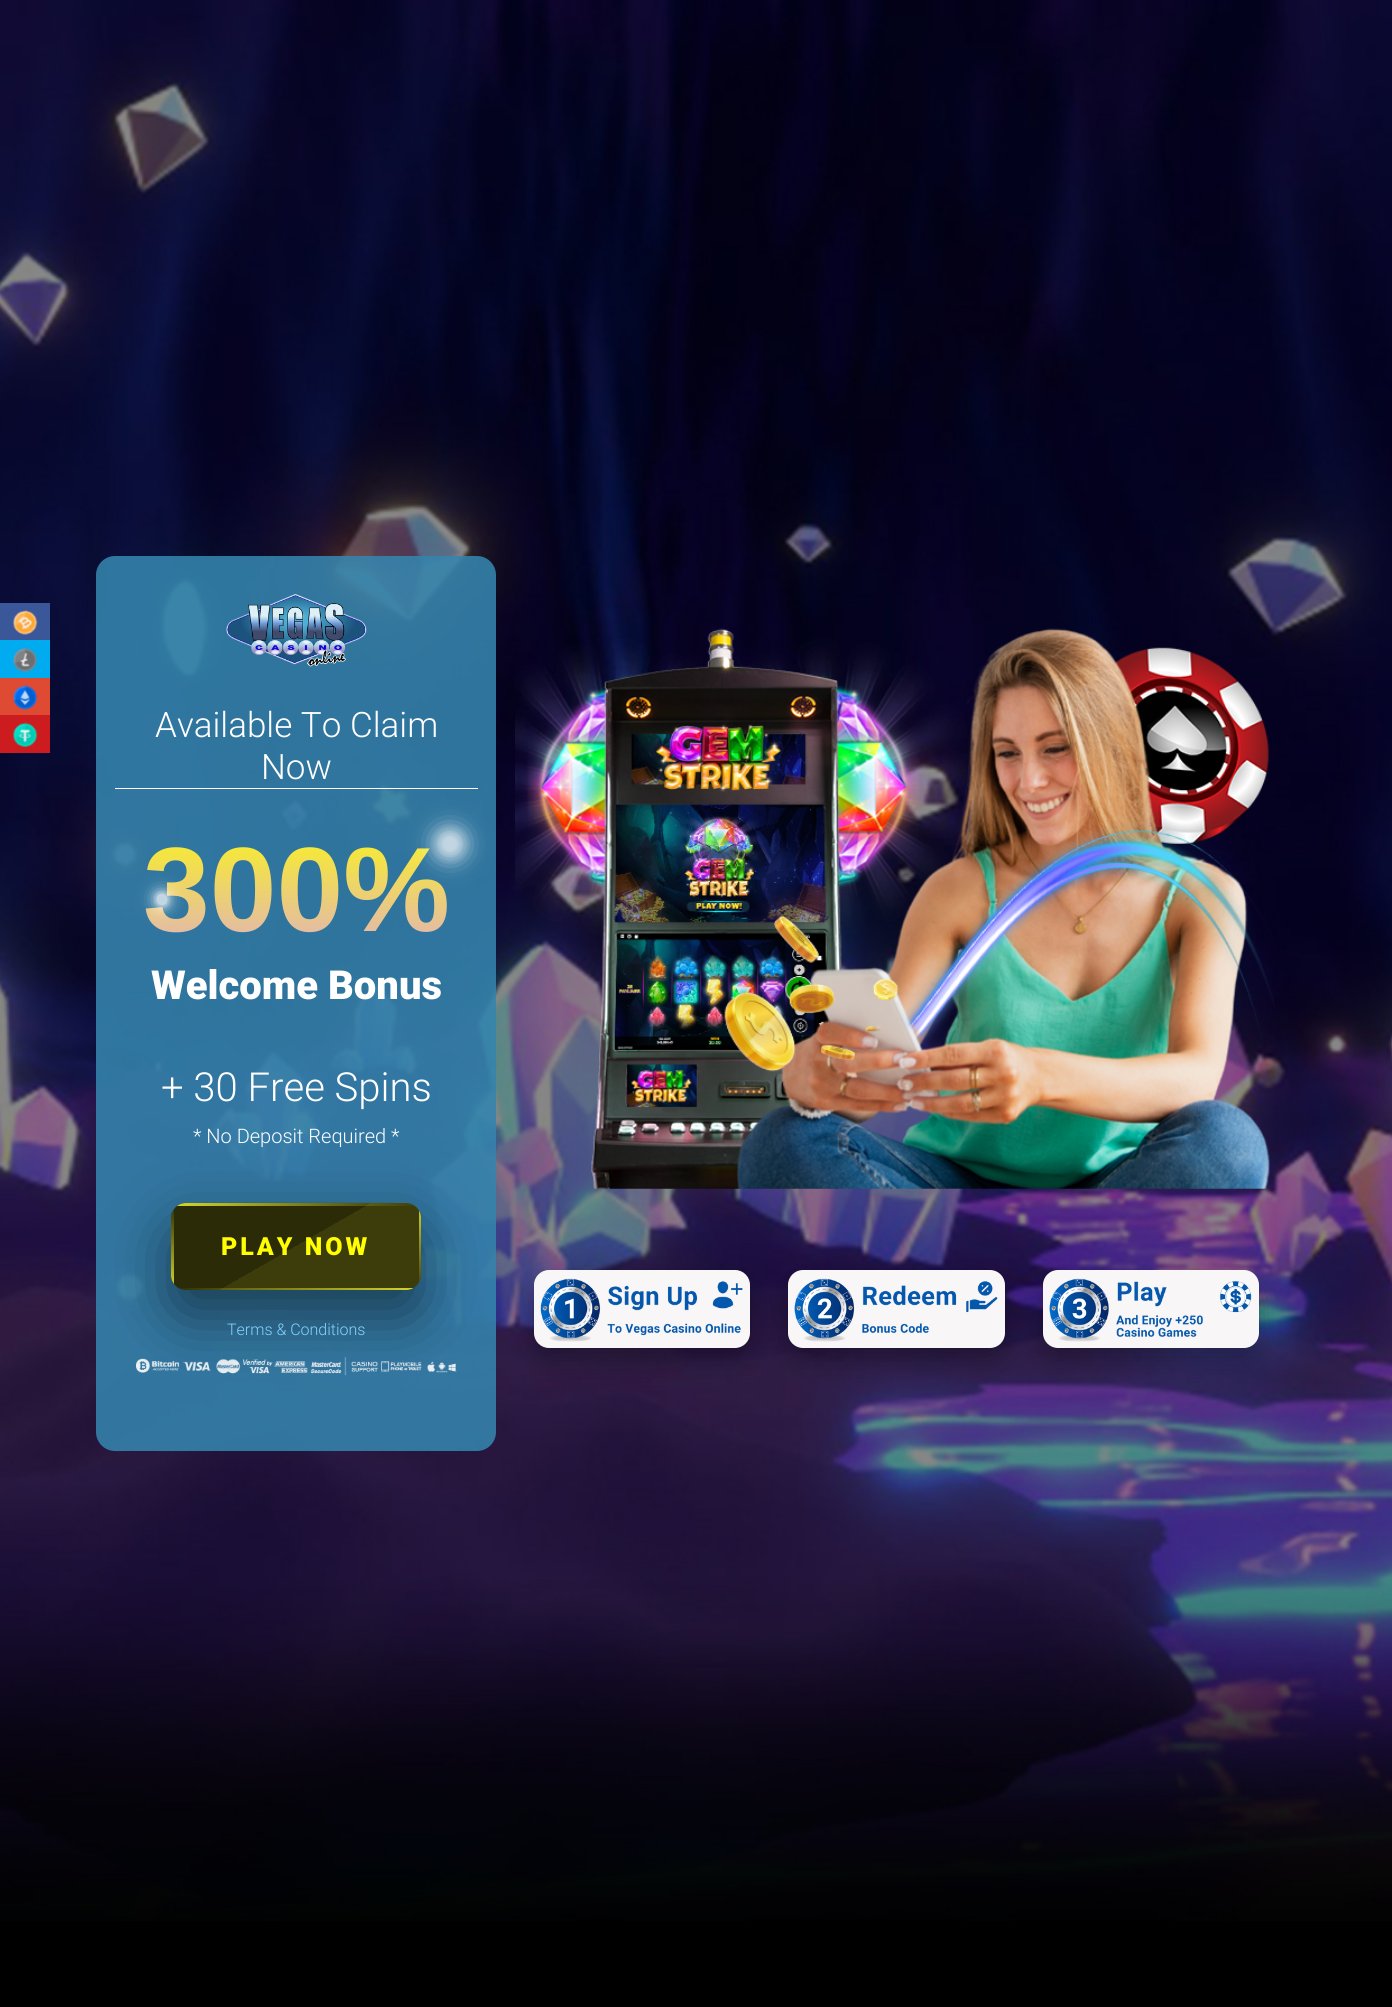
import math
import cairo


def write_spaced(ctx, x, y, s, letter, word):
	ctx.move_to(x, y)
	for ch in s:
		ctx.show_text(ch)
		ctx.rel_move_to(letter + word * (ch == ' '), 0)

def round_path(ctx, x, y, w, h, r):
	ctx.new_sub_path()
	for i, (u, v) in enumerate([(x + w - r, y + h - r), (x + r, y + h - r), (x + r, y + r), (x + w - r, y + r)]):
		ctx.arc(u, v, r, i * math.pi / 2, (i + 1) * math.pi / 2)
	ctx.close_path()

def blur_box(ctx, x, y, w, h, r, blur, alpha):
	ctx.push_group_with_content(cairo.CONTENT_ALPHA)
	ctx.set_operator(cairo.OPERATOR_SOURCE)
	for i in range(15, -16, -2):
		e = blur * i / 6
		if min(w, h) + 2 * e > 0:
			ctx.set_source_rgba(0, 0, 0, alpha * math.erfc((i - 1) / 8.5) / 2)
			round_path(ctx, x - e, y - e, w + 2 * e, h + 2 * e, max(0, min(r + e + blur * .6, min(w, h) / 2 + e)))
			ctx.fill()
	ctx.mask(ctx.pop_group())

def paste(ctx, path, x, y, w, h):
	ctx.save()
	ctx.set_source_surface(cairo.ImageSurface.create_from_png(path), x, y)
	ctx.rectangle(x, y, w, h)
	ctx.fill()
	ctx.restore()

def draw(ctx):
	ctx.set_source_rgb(0, 0, 0)
	ctx.paint()
	paste(ctx, 'media/1.png', 0, 0, 1392, 1921)
	ctx.set_source_rgb(0.227, 0.341, 0.604)
	ctx.rectangle(0, 603, 50, 37)
	ctx.fill()
	paste(ctx, 'media/2.png', 12, 610, 26, 25)
	ctx.set_source_rgb(0, 0.671, 0.941)
	ctx.rectangle(0, 640, 50, 38)
	ctx.fill()
	paste(ctx, 'media/3.png', 13, 647, 25, 25)
	ctx.set_source_rgb(0.875, 0.29, 0.196)
	ctx.rectangle(0, 678, 50, 37)
	ctx.fill()
	paste(ctx, 'media/4.png', 12, 685, 26, 25)
	ctx.set_source_rgb(0.804, 0.11, 0.122)
	ctx.rectangle(0, 715, 50, 38)
	ctx.fill()
	paste(ctx, 'media/5.png', 12, 722, 26, 25)
	ctx.set_source_rgba(0.208, 0.518, 0.682, 0.88)
	round_path(ctx, 96, 556, 400, 895, 19)
	ctx.fill()
	paste(ctx, 'media/6.png', 226, 594, 141, 73)
	ctx.set_source_rgb(1, 1, 1)
	ctx.rectangle(115, 788, 363, 1)
	ctx.fill()
	ctx.select_font_face('Roboto Light')
	ctx.set_font_size(35)
	ctx.move_to(155, 737)
	ctx.show_text('Available To Claim')
	ctx.move_to(261, 779)
	ctx.show_text('Now')
	ctx.select_font_face('Liberation Sans', cairo.FONT_SLANT_NORMAL, cairo.FONT_WEIGHT_BOLD)
	ctx.set_font_size(120)
	gradient = cairo.LinearGradient(143, 799, 143, 979)
	gradient.add_color_stop_rgba(0, 1, 1, 0, 1)
	gradient.add_color_stop_rgba(1, 0.859, 0.651, 0.851, 1)
	ctx.set_source(gradient)
	ctx.move_to(143, 931)
	ctx.show_text('300%')
	ctx.set_source_rgb(1, 1, 1)
	blur_box(ctx, 444, 838, 12, 12, 6, 15.5, 0.7)
	blur_box(ctx, 444, 838, 12, 12, 6, 12.5, 0.7)
	ctx.set_source_rgb(0.757, 0.839, 0.886)
	blur_box(ctx, 444, 838, 12, 12, 6, 9.5, 1)
	ctx.set_source_rgb(0.757, 0.835, 0.886)
	blur_box(ctx, 444, 838, 12, 12, 6, 6, 1)
	blur_box(ctx, 444, 838, 12, 12, 6, 3, 1)
	ctx.set_source_rgb(0.757, 0.835, 0.886)
	ctx.arc(450, 844, 6, 0, 2 * math.pi)
	ctx.fill()
	ctx.set_source_rgb(1, 1, 1)
	blur_box(ctx, 158, 895, 8, 9, 4, 9.5, 0.7)
	blur_box(ctx, 158, 895, 8, 9, 4, 6, 0.7)
	blur_box(ctx, 158, 895, 8, 9, 4, 3, 0.7)
	ctx.set_source_rgb(0.757, 0.839, 0.886)
	round_path(ctx, 158, 895, 8, 9, 4)
	ctx.fill()
	ctx.select_font_face('Roboto Black')
	ctx.set_font_size(40)
	ctx.set_source_rgb(1, 1, 1)
	ctx.move_to(151, 999)
	ctx.show_text('Welcome Bonus')
	ctx.select_font_face('Roboto Light')
	ctx.move_to(161, 1101)
	ctx.show_text('+ 30 Free Spins')
	ctx.set_font_size(20)
	ctx.move_to(193, 1143)
	ctx.show_text('* No Deposit Required *')
	paste(ctx, 'media/7.png', 136, 1357, 321, 19)
	ctx.set_source_rgb(0, 0, 0)
	blur_box(ctx, 171, 1228, 250, 87, 15, 31, 0.5)
	gradient = cairo.LinearGradient(346, 1333, 246, 1159)
	gradient.add_color_stop_rgba(0.5, 0.239, 0.239, 0.043, 1)
	gradient.add_color_stop_rgba(0.5, 0.169, 0.169, 0.031, 1)
	ctx.set_source(gradient)
	round_path(ctx, 171, 1203, 250, 87, 15)
	ctx.fill()
	ctx.save()
	round_path(ctx, 171, 1203, 250, 87, 15)
	ctx.clip()
	gradient = cairo.LinearGradient(421, 1204, 171, 1204)
	gradient.add_color_stop_rgba(0, 0.851, 0.851, 0.149, 0)
	gradient.add_color_stop_rgba(1, 0.851, 0.851, 0.149, 1)
	ctx.set_source(gradient)
	ctx.rectangle(171, 1203, 250, 3)
	ctx.fill()
	gradient = cairo.LinearGradient(173, 1203, 173, 1290)
	gradient.add_color_stop_rgba(0, 0.851, 0.851, 0.149, 0)
	gradient.add_color_stop_rgba(1, 0.851, 0.851, 0.149, 1)
	ctx.set_source(gradient)
	ctx.rectangle(171, 1203, 3, 87)
	ctx.fill()
	ctx.restore()
	ctx.select_font_face('Roboto Black')
	ctx.set_font_size(25)
	ctx.set_source_rgb(1, 1, 0)
	write_spaced(ctx, 221, 1255, 'PLAY NOW', 3, 0)
	ctx.save()
	round_path(ctx, 171, 1203, 250, 87, 15)
	ctx.clip()
	gradient = cairo.LinearGradient(420, 1290, 420, 1203)
	gradient.add_color_stop_rgba(0, 0.851, 0.851, 0.149, 0)
	gradient.add_color_stop_rgba(1, 0.851, 0.851, 0.149, 1)
	ctx.set_source(gradient)
	ctx.rectangle(419, 1203, 2, 87)
	ctx.fill()
	gradient = cairo.LinearGradient(171, 1289, 421, 1289)
	gradient.add_color_stop_rgba(0, 0.851, 0.851, 0.149, 0)
	gradient.add_color_stop_rgba(1, 0.851, 0.851, 0.149, 1)
	ctx.set_source(gradient)
	ctx.rectangle(180, 1288, 241, 2)
	ctx.fill()
	ctx.restore()
	ctx.select_font_face('Roboto Light')
	ctx.set_font_size(16)
	ctx.set_source_rgb(0.518, 0.824, 1)
	ctx.move_to(227, 1335)
	ctx.show_text('Terms & Conditions')
	paste(ctx, 'media/8.png', 515, 628, 760, 561)
	ctx.set_source_rgb(0, 0, 0)
	blur_box(ctx, 534, 1283, 216, 77, 15, 12.5, 0.3)
	ctx.set_source_rgb(0.969, 0.961, 0.961)
	round_path(ctx, 534, 1270, 216, 78, 15)
	ctx.fill()
	paste(ctx, 'media/9.png', 540, 1278, 203, 64)
	ctx.set_source_rgb(0, 0, 0)
	blur_box(ctx, 788, 1283, 217, 77, 15, 12.5, 0.3)
	ctx.set_source_rgb(0.969, 0.961, 0.961)
	round_path(ctx, 788, 1270, 217, 78, 15)
	ctx.fill()
	paste(ctx, 'media/10.png', 794, 1278, 204, 64)
	ctx.set_source_rgb(0, 0, 0)
	blur_box(ctx, 1043, 1283, 216, 77, 15, 12.5, 0.3)
	ctx.set_source_rgb(0.969, 0.961, 0.961)
	round_path(ctx, 1043, 1270, 216, 78, 15)
	ctx.fill()
	paste(ctx, 'media/11.png', 1049, 1278, 203, 64)


surface = cairo.ImageSurface(cairo.FORMAT_RGB24, 1392, 2007)
ctx = cairo.Context(surface)
options = cairo.FontOptions()
options.set_hint_metrics(cairo.HINT_METRICS_OFF)
options.set_hint_style(cairo.HINT_STYLE_NONE)
ctx.set_font_options(options)
ctx.set_miter_limit(4)
draw(ctx)
surface.write_to_png('image.png')
